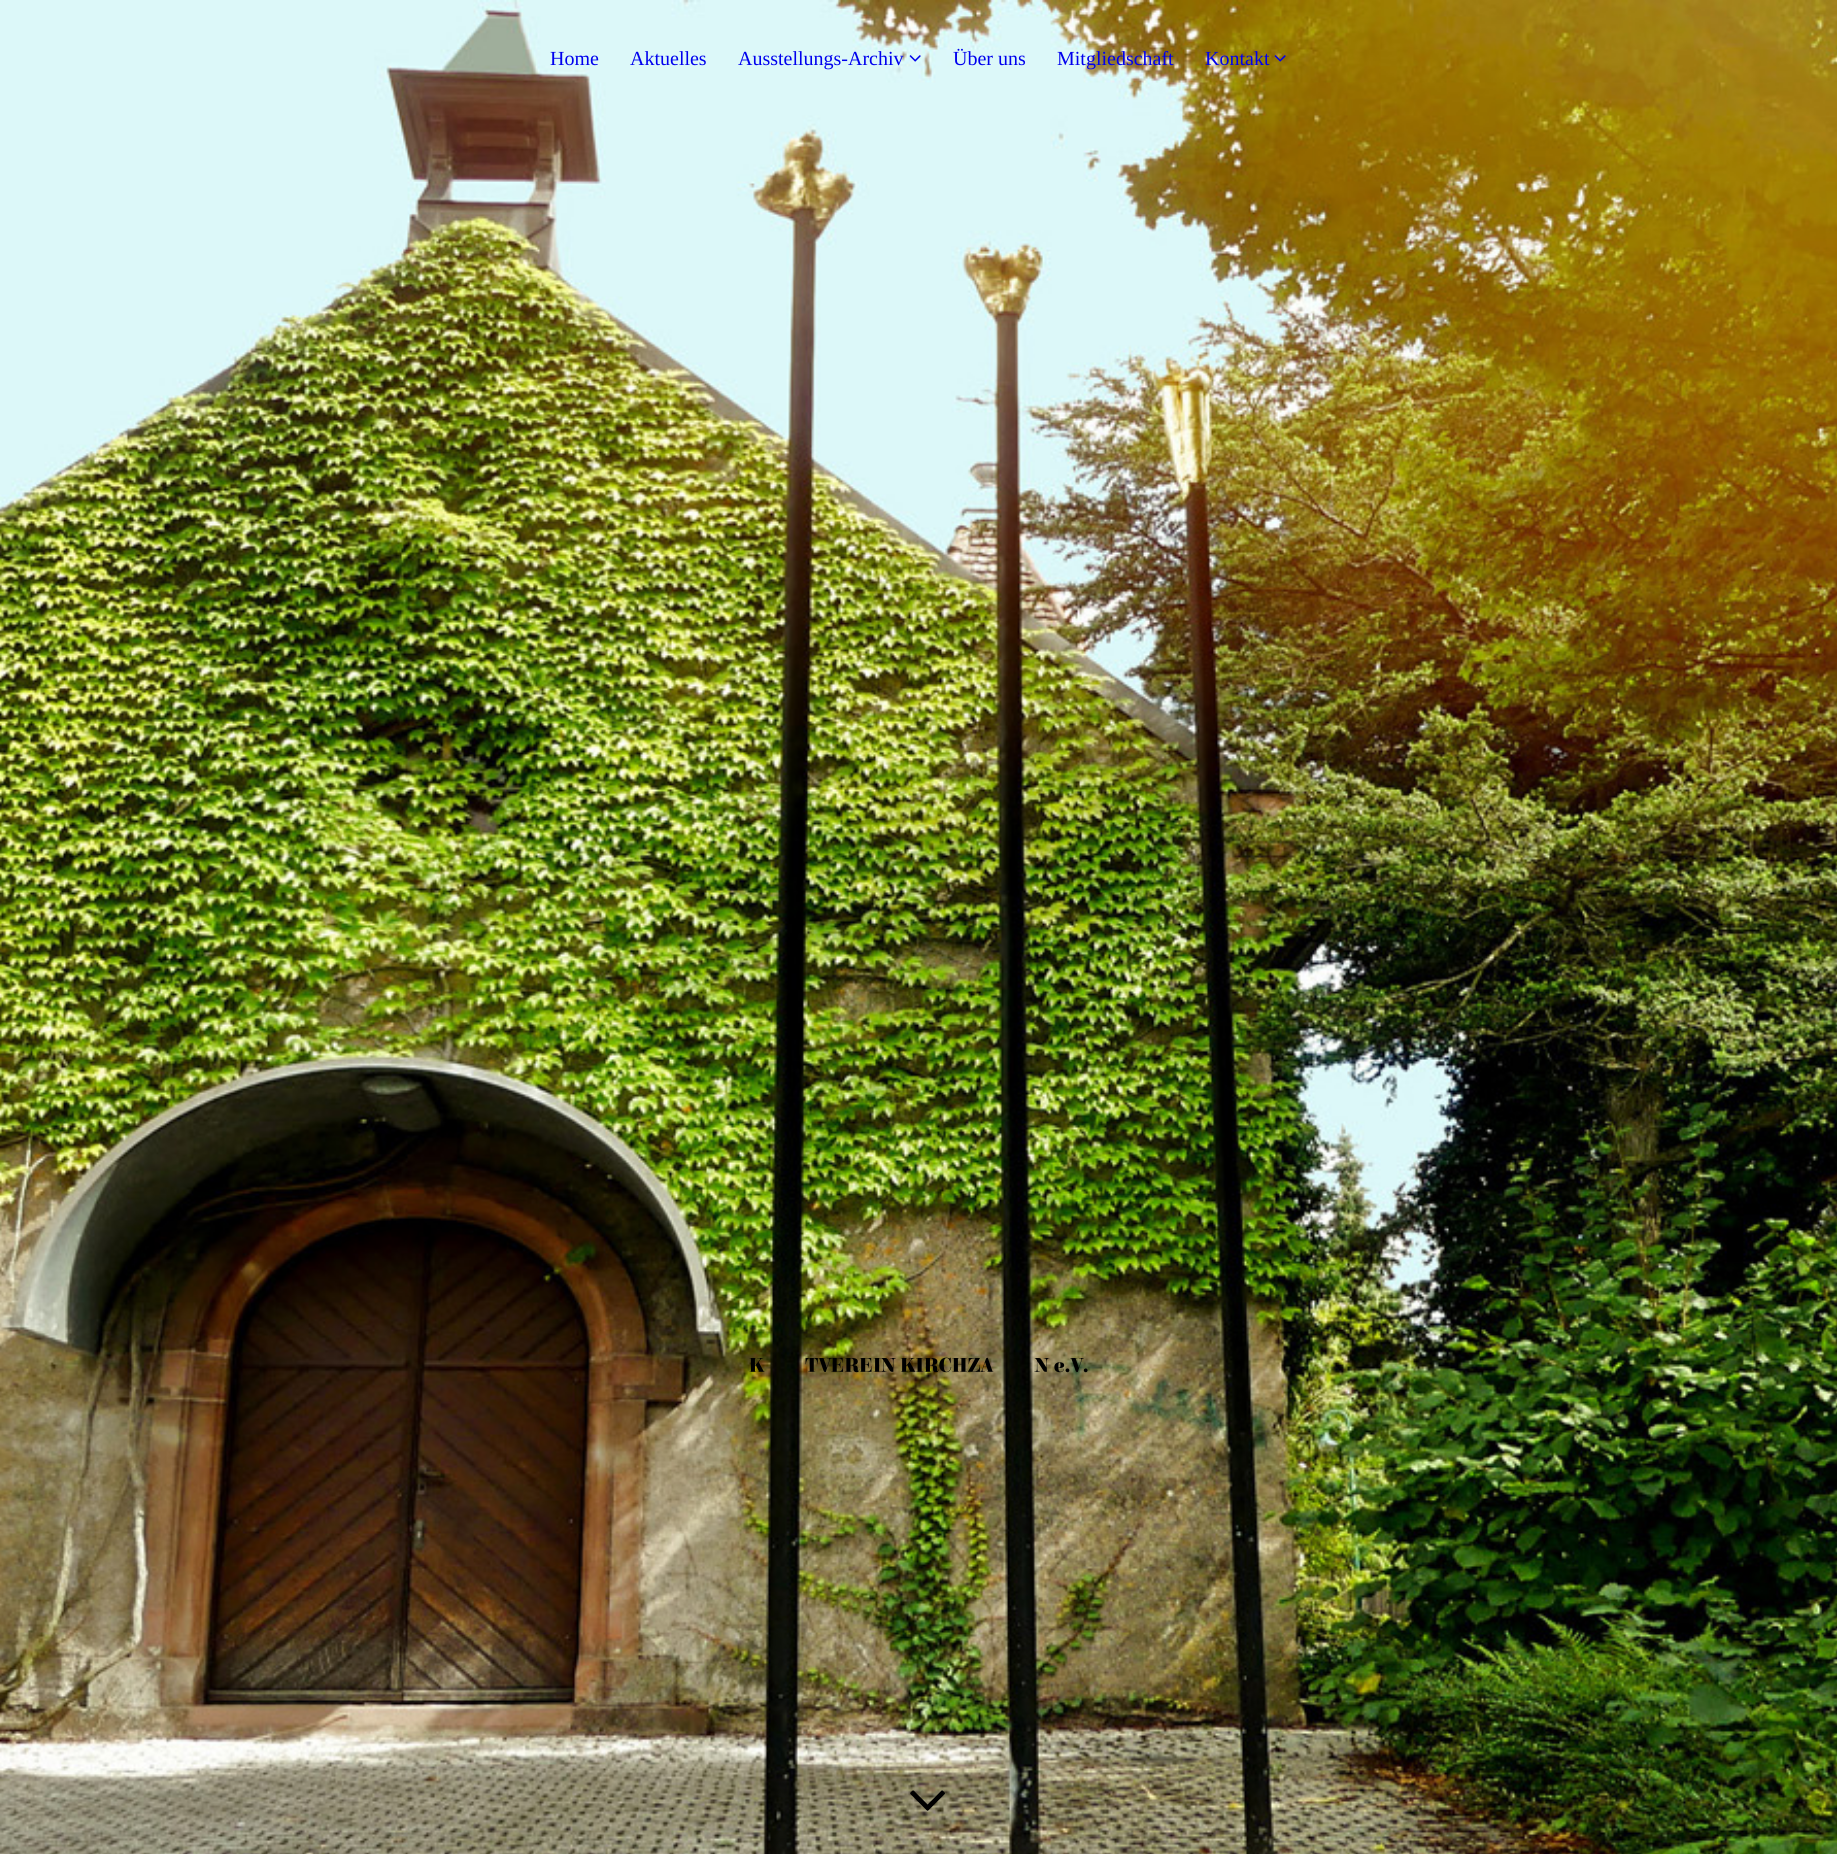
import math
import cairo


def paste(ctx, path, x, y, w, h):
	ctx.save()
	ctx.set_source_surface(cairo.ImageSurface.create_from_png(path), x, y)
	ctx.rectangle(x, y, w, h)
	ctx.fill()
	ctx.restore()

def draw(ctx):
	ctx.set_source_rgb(1, 1, 1)
	ctx.paint()
	paste(ctx, 'media/3.png', 0, 0, 1837, 1854)
	ctx.select_font_face('Liberation Serif')
	ctx.set_font_size(20)
	ctx.set_source_rgb(0, 0, 0.933)
	for x, y, s in [
		(550, 65, 'Home'),
		(630, 65, 'Aktuelles'),
		(738, 65, 'Ausstellungs-Archiv'),
	]:
		ctx.move_to(x, y)
		ctx.show_text(s)
	paste(ctx, 'media/1.png', 909, 55, 12, 7)
	for x, y, s in [
		(953, 65, 'Über uns'),
		(1057, 65, 'Mitgliedschaft'),
		(1205, 65, 'Kontakt'),
	]:
		ctx.move_to(x, y)
		ctx.show_text(s)
	paste(ctx, 'media/2.png', 1274, 55, 12, 7)
	ctx.select_font_face('Elsie Black')
	ctx.set_source_rgb(0, 0, 0)
	for x, y, s in [
		(749, 1372, 'K'),
		(805, 1372, 'TVEREIN KIRCHZA'),
		(1035, 1372, 'N e.V.'),
	]:
		ctx.move_to(x, y)
		ctx.show_text(s)
	paste(ctx, 'media/4.png', 910, 1790, 35, 21)


surface = cairo.ImageSurface(cairo.FORMAT_RGB24, 1837, 1854)
ctx = cairo.Context(surface)
options = cairo.FontOptions()
options.set_hint_metrics(cairo.HINT_METRICS_OFF)
options.set_hint_style(cairo.HINT_STYLE_NONE)
ctx.set_font_options(options)
ctx.set_miter_limit(4)
draw(ctx)
surface.write_to_png('image.png')
